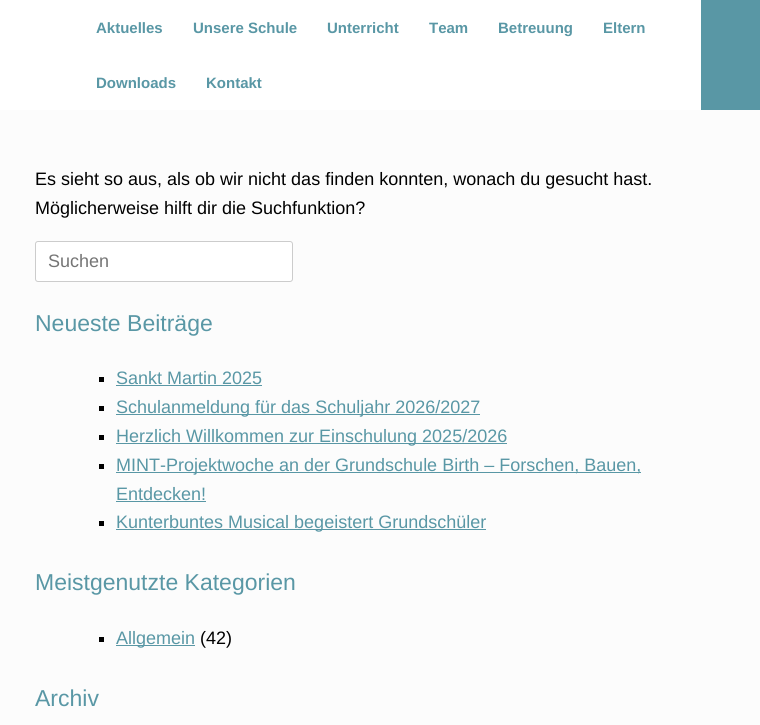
import math
import cairo


def round_path(ctx, x, y, w, h, r):
	ctx.new_sub_path()
	for i, (u, v) in enumerate([(x + w - r, y + h - r), (x + r, y + h - r), (x + r, y + r), (x + w - r, y + r)]):
		ctx.arc(u, v, r, i * math.pi / 2, (i + 1) * math.pi / 2)
	ctx.close_path()

def draw(ctx):
	ctx.set_source_rgb(1, 1, 1)
	ctx.paint()
	ctx.select_font_face('Liberation Sans', cairo.FONT_SLANT_NORMAL, cairo.FONT_WEIGHT_BOLD)
	ctx.set_font_size(15)
	ctx.set_source_rgb(0.349, 0.592, 0.647)
	for x, y, s in [
		(96, 33, 'Aktuelles'),
		(193, 33, 'Unsere Schule'),
		(327, 33, 'Unterricht'),
		(429, 33, 'Team'),
		(498, 33, 'Betreuung'),
		(603, 33, 'Eltern'),
		(96, 88, 'Downloads'),
		(206, 88, 'Kontakt'),
	]:
		ctx.move_to(x, y)
		ctx.show_text(s)
	ctx.rectangle(701, 0, 59, 110)
	ctx.fill()
	ctx.set_source_rgb(0.988, 0.988, 0.988)
	ctx.rectangle(0, 110, 760, 615)
	ctx.fill()
	ctx.select_font_face('Liberation Sans')
	ctx.set_font_size(18)
	ctx.set_source_rgb(0, 0, 0)
	ctx.move_to(35, 185)
	ctx.show_text('Es sieht so aus, als ob wir nicht das finden konnten, wonach du gesucht hast.')
	ctx.move_to(35, 214)
	ctx.show_text('Möglicherweise hilft dir die Suchfunktion?')
	ctx.set_source_rgb(1, 1, 1)
	round_path(ctx, 35.5, 241.5, 257, 40, 2.5)
	ctx.fill_preserve()
	ctx.set_source_rgb(0.8, 0.8, 0.8)
	ctx.set_line_width(1)
	ctx.stroke()
	ctx.set_source_rgb(0.459, 0.459, 0.459)
	ctx.move_to(48, 267)
	ctx.show_text('Suchen')
	ctx.set_font_size(23)
	ctx.set_source_rgb(0.349, 0.592, 0.647)
	ctx.move_to(35, 331)
	ctx.show_text('Neueste Beiträge')
	ctx.set_source_rgb(0, 0, 0)
	ctx.rectangle(99, 377, 5, 5)
	ctx.fill()
	ctx.set_font_size(18)
	ctx.set_source_rgb(0.349, 0.592, 0.647)
	ctx.move_to(116, 384)
	ctx.show_text('Sankt Martin 2025')
	ctx.rectangle(116, 385, 146, 1)
	ctx.fill()
	ctx.set_source_rgb(0, 0, 0)
	ctx.rectangle(99, 406, 5, 5)
	ctx.fill()
	ctx.set_source_rgb(0.349, 0.592, 0.647)
	ctx.rectangle(116, 414, 364, 1)
	ctx.fill()
	ctx.move_to(116, 413)
	ctx.show_text('Schulanmeldung für das Schuljahr 2026/2027')
	ctx.set_source_rgb(0, 0, 0)
	ctx.rectangle(99, 435, 5, 5)
	ctx.fill()
	ctx.set_source_rgb(0.349, 0.592, 0.647)
	ctx.rectangle(116, 443, 391, 1)
	ctx.fill()
	ctx.move_to(116, 442)
	ctx.show_text('Herzlich Willkommen zur Einschulung 2025/2026')
	ctx.set_source_rgb(0, 0, 0)
	ctx.rectangle(99, 464, 5, 5)
	ctx.fill()
	ctx.set_source_rgb(0.349, 0.592, 0.647)
	ctx.rectangle(116, 472, 525, 1)
	ctx.fill()
	ctx.move_to(116, 471)
	ctx.show_text('MINT-Projektwoche an der Grundschule Birth – Forschen, Bauen,')
	ctx.move_to(116, 500)
	ctx.show_text('Entdecken!')
	ctx.rectangle(116, 501, 90, 1)
	ctx.fill()
	ctx.set_source_rgb(0, 0, 0)
	ctx.rectangle(99, 521, 5, 5)
	ctx.fill()
	ctx.set_source_rgb(0.349, 0.592, 0.647)
	ctx.rectangle(116, 529, 370, 1)
	ctx.fill()
	ctx.move_to(116, 528)
	ctx.show_text('Kunterbuntes Musical begeistert Grundschüler')
	ctx.set_font_size(23)
	ctx.move_to(35, 590)
	ctx.show_text('Meistgenutzte Kategorien')
	ctx.set_source_rgb(0, 0, 0)
	ctx.rectangle(99, 637, 5, 5)
	ctx.fill()
	ctx.set_source_rgb(0.349, 0.592, 0.647)
	ctx.rectangle(116, 645, 79, 1)
	ctx.fill()
	ctx.set_font_size(18)
	ctx.move_to(116, 644)
	ctx.show_text('Allgemein')
	ctx.set_source_rgb(0, 0, 0)
	ctx.move_to(200, 644)
	ctx.show_text('(42)')
	ctx.set_font_size(23)
	ctx.set_source_rgb(0.349, 0.592, 0.647)
	ctx.move_to(35, 706)
	ctx.show_text('Archiv')


surface = cairo.ImageSurface(cairo.FORMAT_RGB24, 760, 725)
ctx = cairo.Context(surface)
options = cairo.FontOptions()
options.set_hint_metrics(cairo.HINT_METRICS_OFF)
options.set_hint_style(cairo.HINT_STYLE_NONE)
ctx.set_font_options(options)
ctx.set_miter_limit(4)
draw(ctx)
surface.write_to_png('image.png')
